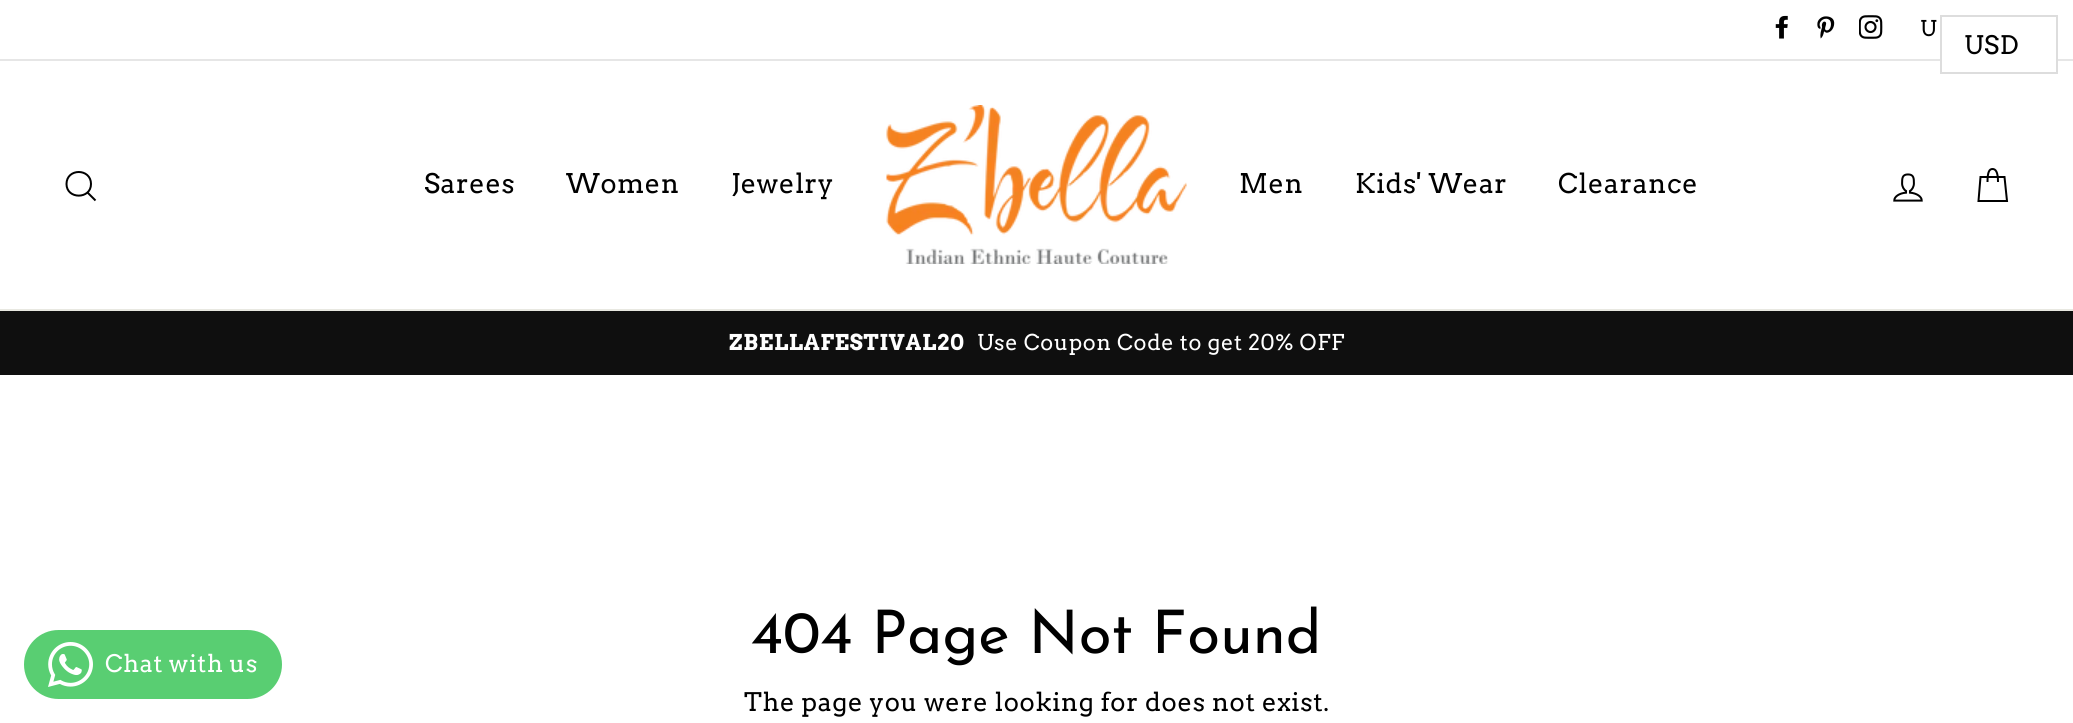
import math
import cairo


def write_spaced(ctx, x, y, s, letter, word):
	ctx.move_to(x, y)
	for ch in s:
		ctx.show_text(ch)
		ctx.rel_move_to(letter + word * (ch == ' '), 0)

def round_path(ctx, x, y, w, h, r):
	ctx.new_sub_path()
	for i, (u, v) in enumerate([(x + w - r, y + h - r), (x + r, y + h - r), (x + r, y + r), (x + w - r, y + r)]):
		ctx.arc(u, v, r, i * math.pi / 2, (i + 1) * math.pi / 2)
	ctx.close_path()

def paste(ctx, path, x, y, w, h):
	ctx.save()
	ctx.set_source_surface(cairo.ImageSurface.create_from_png(path), x, y)
	ctx.rectangle(x, y, w, h)
	ctx.fill()
	ctx.restore()

def draw(ctx):
	ctx.set_source_rgb(1, 1, 1)
	ctx.paint()
	paste(ctx, 'media/1.png', 1775, 15, 13, 24)
	paste(ctx, 'media/2.png', 1817, 16, 18, 23)
	paste(ctx, 'media/3.png', 1859, 15, 24, 24)
	ctx.select_font_face('Arvo')
	ctx.set_font_size(21.7)
	ctx.set_source_rgb(0, 0, 0)
	write_spaced(ctx, 1920, 36, 'U', 1, 0)
	ctx.set_source_rgb(0.902, 0.902, 0.902)
	ctx.rectangle(0, 59, 2073, 2)
	ctx.fill()
	ctx.set_source_rgb(0.91, 0.91, 0.882)
	ctx.rectangle(0, 309, 2073, 2)
	ctx.fill()
	ctx.new_path()
	ctx.move_to(91, 184)
	ctx.curve_to(91, 199.5, 66.5, 199.5, 66.5, 184)
	ctx.curve_to(66.5, 168, 91, 168, 91, 184)
	ctx.close_path()
	ctx.move_to(95.5, 200.5)
	ctx.line_to(87.5, 192.5)
	ctx.set_source_rgb(0, 0, 0)
	ctx.stroke()
	ctx.set_font_size(27)
	for x, y, s in [
		(424, 193, 'Sarees'),
		(566, 193, 'Women'),
		(731, 193, 'Jewelry'),
	]:
		write_spaced(ctx, x, y, s, 0.65, 0)
	paste(ctx, 'media/4.png', 886, 105, 301, 159)
	for x, y, s in [
		(1239, 193, 'Men'),
		(1355, 193, 'Kids\' Wear'),
		(1558, 193, 'Clearance'),
	]:
		write_spaced(ctx, x, y, s, 0.65, 0)
	paste(ctx, 'media/5.png', 1893, 173, 30, 29)
	ctx.new_path()
	ctx.move_to(1987.5, 182)
	ctx.curve_to(1987.5, 171.5, 1989.5, 169, 1992.5, 169)
	ctx.curve_to(1995.5, 169, 1998, 171.5, 1998, 182)
	ctx.move_to(1980.5, 177)
	ctx.line_to(2004.5, 177)
	ctx.line_to(2007, 201)
	ctx.line_to(1978.5, 201)
	ctx.close_path()
	ctx.stroke()
	ctx.set_source_rgb(0.059, 0.059, 0.059)
	ctx.rectangle(0, 311, 2073, 64)
	ctx.fill()
	ctx.select_font_face('Arvo', cairo.FONT_SLANT_NORMAL, cairo.FONT_WEIGHT_BOLD)
	ctx.set_font_size(21.7)
	ctx.set_source_rgb(1, 1, 1)
	write_spaced(ctx, 729, 350, 'ZBELLAFESTIVAL20', 0.65, 0)
	ctx.select_font_face('Arvo')
	write_spaced(ctx, 977, 350, 'Use Coupon Code to get 20% OFF', 0.65, 0)
	ctx.select_font_face('Josefin Sans')
	ctx.set_font_size(60)
	ctx.set_source_rgb(0, 0, 0)
	ctx.move_to(751, 653)
	ctx.show_text('404 Page Not Found')
	ctx.select_font_face('Arvo')
	ctx.set_font_size(25.5)
	write_spaced(ctx, 744, 711, 'The page you were looking for does not exist.', 0.65, 0)
	ctx.set_source_rgb(1, 1, 1)
	ctx.rectangle(1942, 59, 114, 2)
	ctx.fill()
	ctx.rectangle(1941, 16, 116, 57)
	ctx.set_source_rgb(0.867, 0.867, 0.867)
	ctx.stroke()
	ctx.set_source_rgb(0, 0, 0)
	write_spaced(ctx, 1964, 54, 'USD', 0.65, 0)
	ctx.set_source_rgb(0.349, 0.808, 0.447)
	round_path(ctx, 24, 630, 258, 69, 34.5)
	ctx.fill()
	paste(ctx, 'media/6.png', 48, 642, 45, 45)
	ctx.set_font_size(24)
	ctx.set_source_rgb(1, 1, 1)
	write_spaced(ctx, 105, 672, 'Chat with us', 0.65, 0)


surface = cairo.ImageSurface(cairo.FORMAT_RGB24, 2073, 723)
ctx = cairo.Context(surface)
options = cairo.FontOptions()
options.set_hint_metrics(cairo.HINT_METRICS_OFF)
options.set_hint_style(cairo.HINT_STYLE_NONE)
ctx.set_font_options(options)
ctx.set_miter_limit(4)
draw(ctx)
surface.write_to_png('image.png')
